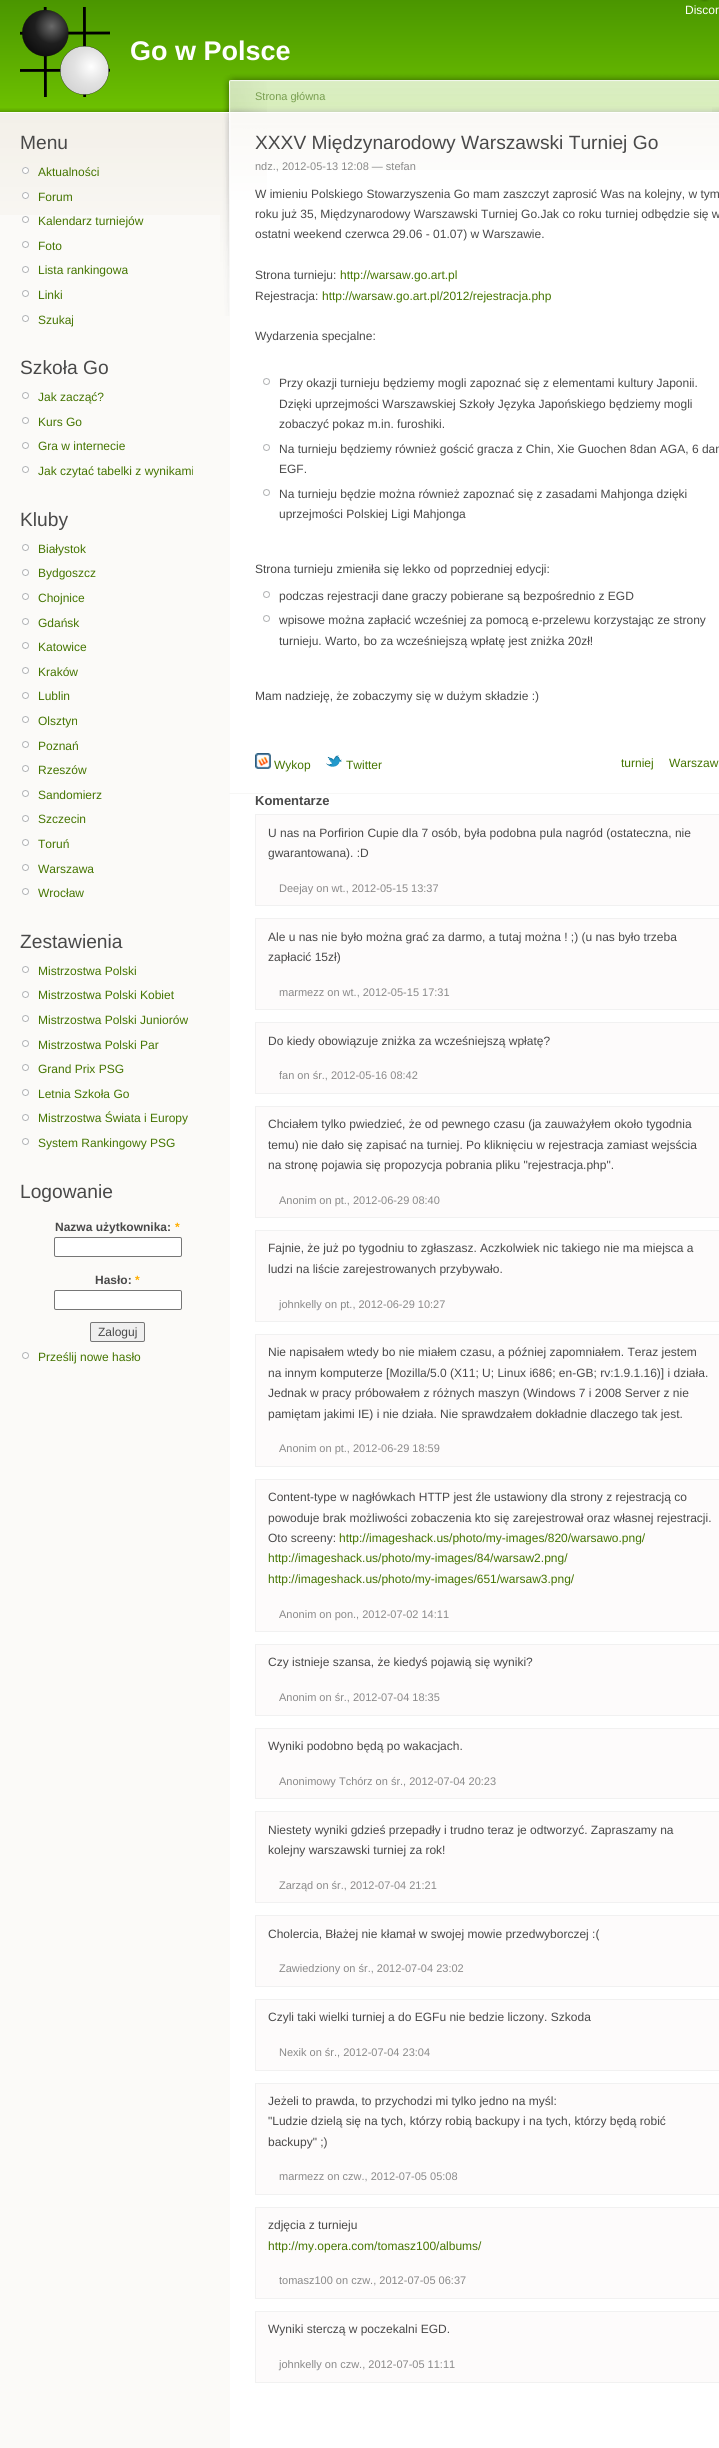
import math
import cairo


def round_path(ctx, x, y, w, h, r):
	ctx.new_sub_path()
	for i, (u, v) in enumerate([(x + w - r, y + h - r), (x + r, y + h - r), (x + r, y + r), (x + w - r, y + r)]):
		ctx.arc(u, v, r, i * math.pi / 2, (i + 1) * math.pi / 2)
	ctx.close_path()

def paste(ctx, path, x, y, w, h):
	ctx.save()
	ctx.set_source_surface(cairo.ImageSurface.create_from_png(path), x, y)
	ctx.rectangle(x, y, w, h)
	ctx.fill()
	ctx.restore()

def draw(ctx):
	ctx.set_source_rgb(0.984, 0.98, 0.969)
	ctx.paint()
	paste(ctx, 'media/1.png', 0, 0, 719, 215)
	paste(ctx, 'media/2.png', 700, 0, 9, 2)
	ctx.select_font_face('Liberation Sans')
	ctx.set_font_size(12)
	ctx.set_source_rgb(1, 1, 1)
	ctx.move_to(685, 14)
	ctx.show_text('Discor')
	paste(ctx, 'media/3.png', 20, 7, 90, 90)
	ctx.select_font_face('Liberation Sans', cairo.FONT_SLANT_NORMAL, cairo.FONT_WEIGHT_BOLD)
	ctx.set_font_size(27)
	ctx.move_to(130, 60)
	ctx.show_text('Go w Polsce')
	ctx.select_font_face('Liberation Sans')
	ctx.set_font_size(19.2)
	ctx.set_source_rgb(0.286, 0.286, 0.286)
	ctx.move_to(20, 149)
	ctx.show_text('Menu')
	paste(ctx, 'media/4.png', 22, 167, 7, 7)
	ctx.set_font_size(12)
	ctx.set_source_rgb(0.271, 0.459, 0.004)
	ctx.move_to(38, 176)
	ctx.show_text('Aktualności')
	paste(ctx, 'media/5.png', 22, 192, 7, 7)
	ctx.move_to(38, 201)
	ctx.show_text('Forum')
	paste(ctx, 'media/6.png', 22, 216, 7, 7)
	ctx.move_to(38, 225)
	ctx.show_text('Kalendarz turniejów')
	paste(ctx, 'media/6.png', 22, 241, 7, 7)
	ctx.move_to(38, 250)
	ctx.show_text('Foto')
	paste(ctx, 'media/6.png', 22, 266, 7, 7)
	ctx.move_to(38, 274)
	ctx.show_text('Lista rankingowa')
	paste(ctx, 'media/6.png', 22, 290, 7, 7)
	ctx.move_to(38, 299)
	ctx.show_text('Linki')
	paste(ctx, 'media/6.png', 22, 315, 7, 7)
	ctx.move_to(38, 324)
	ctx.show_text('Szukaj')
	ctx.set_font_size(19.2)
	ctx.set_source_rgb(0.286, 0.286, 0.286)
	ctx.move_to(20, 374)
	ctx.show_text('Szkoła Go')
	paste(ctx, 'media/6.png', 22, 392, 7, 7)
	ctx.set_font_size(12)
	ctx.set_source_rgb(0.271, 0.459, 0.004)
	ctx.move_to(38, 401)
	ctx.show_text('Jak zacząć?')
	paste(ctx, 'media/6.png', 22, 417, 7, 7)
	ctx.move_to(38, 426)
	ctx.show_text('Kurs Go')
	paste(ctx, 'media/6.png', 22, 442, 7, 7)
	ctx.move_to(38, 450)
	ctx.show_text('Gra w internecie')
	paste(ctx, 'media/6.png', 22, 466, 7, 7)
	ctx.move_to(38, 475)
	ctx.show_text('Jak czytać tabelki z wynikami')
	ctx.set_font_size(19.2)
	ctx.set_source_rgb(0.286, 0.286, 0.286)
	ctx.move_to(20, 526)
	ctx.show_text('Kluby')
	paste(ctx, 'media/6.png', 22, 544, 7, 7)
	ctx.set_font_size(12)
	ctx.set_source_rgb(0.271, 0.459, 0.004)
	ctx.move_to(38, 553)
	ctx.show_text('Białystok')
	paste(ctx, 'media/6.png', 22, 569, 7, 7)
	ctx.move_to(38, 577)
	ctx.show_text('Bydgoszcz')
	paste(ctx, 'media/6.png', 22, 593, 7, 7)
	ctx.move_to(38, 602)
	ctx.show_text('Chojnice')
	paste(ctx, 'media/6.png', 22, 618, 7, 7)
	ctx.move_to(38, 627)
	ctx.show_text('Gdańsk')
	paste(ctx, 'media/6.png', 22, 642, 7, 7)
	ctx.move_to(38, 651)
	ctx.show_text('Katowice')
	paste(ctx, 'media/6.png', 22, 667, 7, 7)
	ctx.move_to(38, 676)
	ctx.show_text('Kraków')
	paste(ctx, 'media/6.png', 22, 692, 7, 7)
	ctx.move_to(38, 700)
	ctx.show_text('Lublin')
	paste(ctx, 'media/6.png', 22, 716, 7, 7)
	ctx.move_to(38, 725)
	ctx.show_text('Olsztyn')
	paste(ctx, 'media/6.png', 22, 741, 7, 7)
	ctx.move_to(38, 750)
	ctx.show_text('Poznań')
	paste(ctx, 'media/6.png', 22, 765, 7, 7)
	ctx.move_to(38, 774)
	ctx.show_text('Rzeszów')
	paste(ctx, 'media/6.png', 22, 790, 7, 7)
	ctx.move_to(38, 799)
	ctx.show_text('Sandomierz')
	paste(ctx, 'media/6.png', 22, 815, 7, 7)
	ctx.move_to(38, 823)
	ctx.show_text('Szczecin')
	paste(ctx, 'media/6.png', 22, 839, 7, 7)
	ctx.move_to(38, 848)
	ctx.show_text('Toruń')
	paste(ctx, 'media/6.png', 22, 864, 7, 7)
	ctx.move_to(38, 873)
	ctx.show_text('Warszawa')
	paste(ctx, 'media/6.png', 22, 888, 7, 7)
	ctx.move_to(38, 897)
	ctx.show_text('Wrocław')
	ctx.set_font_size(19.2)
	ctx.set_source_rgb(0.286, 0.286, 0.286)
	ctx.move_to(20, 948)
	ctx.show_text('Zestawienia')
	paste(ctx, 'media/6.png', 22, 966, 7, 7)
	ctx.set_font_size(12)
	ctx.set_source_rgb(0.271, 0.459, 0.004)
	ctx.move_to(38, 975)
	ctx.show_text('Mistrzostwa Polski')
	paste(ctx, 'media/6.png', 22, 991, 7, 7)
	ctx.move_to(38, 999)
	ctx.show_text('Mistrzostwa Polski Kobiet')
	paste(ctx, 'media/6.png', 22, 1015, 7, 7)
	ctx.move_to(38, 1024)
	ctx.show_text('Mistrzostwa Polski Juniorów')
	paste(ctx, 'media/6.png', 22, 1040, 7, 7)
	ctx.move_to(38, 1049)
	ctx.show_text('Mistrzostwa Polski Par')
	paste(ctx, 'media/6.png', 22, 1064, 7, 7)
	ctx.move_to(38, 1073)
	ctx.show_text('Grand Prix PSG')
	paste(ctx, 'media/6.png', 22, 1089, 7, 7)
	ctx.move_to(38, 1098)
	ctx.show_text('Letnia Szkoła Go')
	paste(ctx, 'media/6.png', 22, 1114, 7, 7)
	ctx.move_to(38, 1122)
	ctx.show_text('Mistrzostwa Świata i Europy')
	paste(ctx, 'media/6.png', 22, 1138, 7, 7)
	ctx.move_to(38, 1147)
	ctx.show_text('System Rankingowy PSG')
	ctx.set_font_size(19.2)
	ctx.set_source_rgb(0.286, 0.286, 0.286)
	ctx.move_to(20, 1198)
	ctx.show_text('Logowanie')
	ctx.select_font_face('Liberation Sans', cairo.FONT_SLANT_NORMAL, cairo.FONT_WEIGHT_BOLD)
	ctx.set_font_size(12)
	ctx.move_to(55, 1231)
	ctx.show_text('Nazwa użytkownika:')
	ctx.set_source_rgb(1, 0.682, 0)
	ctx.move_to(175, 1231)
	ctx.show_text('*')
	ctx.set_source_rgb(1, 1, 1)
	round_path(ctx, 54.5, 1237.5, 127, 19, 1.5)
	ctx.fill_preserve()
	ctx.set_source_rgb(0.463, 0.463, 0.463)
	ctx.set_line_width(1)
	ctx.stroke()
	ctx.set_source_rgb(0.286, 0.286, 0.286)
	ctx.move_to(95, 1284)
	ctx.show_text('Hasło:')
	ctx.set_source_rgb(1, 0.682, 0)
	ctx.move_to(135, 1284)
	ctx.show_text('*')
	ctx.set_source_rgb(1, 1, 1)
	round_path(ctx, 54.5, 1290.5, 127, 19, 1.5)
	ctx.fill_preserve()
	ctx.set_source_rgb(0.463, 0.463, 0.463)
	ctx.stroke()
	ctx.set_source_rgb(0.937, 0.937, 0.937)
	round_path(ctx, 90.5, 1322.5, 54, 19, 1.5)
	ctx.fill_preserve()
	ctx.set_source_rgb(0.463, 0.463, 0.463)
	ctx.stroke()
	ctx.select_font_face('Liberation Sans')
	ctx.set_source_rgb(0.286, 0.286, 0.286)
	ctx.move_to(98, 1336)
	ctx.show_text('Zaloguj')
	paste(ctx, 'media/6.png', 22, 1352, 7, 7)
	ctx.set_source_rgb(0.271, 0.459, 0.004)
	ctx.move_to(38, 1361)
	ctx.show_text('Prześlij nowe hasło')
	ctx.set_source_rgb(1, 1, 1)
	ctx.rectangle(230, 170, 489, 2278)
	ctx.fill()
	paste(ctx, 'media/7.png', 230, 71, 489, 99)
	paste(ctx, 'media/8.png', 712, 107, 7, 5)
	paste(ctx, 'media/9.png', 220, 75, 47, 241)
	ctx.set_font_size(11)
	ctx.set_source_rgb(0.471, 0.62, 0.314)
	ctx.move_to(255, 100)
	ctx.show_text('Strona główna')
	ctx.set_font_size(19.2)
	ctx.set_source_rgb(0.286, 0.286, 0.286)
	ctx.move_to(255, 149)
	ctx.show_text('XXXV Międzynarodowy Warszawski Turniej Go')
	ctx.set_source_rgb(0.965, 0.965, 0.961)
	ctx.rectangle(229, 793, 490, 1)
	ctx.fill()
	ctx.set_font_size(11)
	ctx.set_source_rgb(0.537, 0.537, 0.537)
	ctx.move_to(255, 170)
	ctx.show_text('ndz., 2012-05-13 12:08 — stefan')
	ctx.set_font_size(12)
	ctx.set_source_rgb(0.286, 0.286, 0.286)
	for x, y, s in [
		(255, 198, 'W imieniu Polskiego Stowarzyszenia Go mam zaszczyt zaprosić Was na kolejny, w tym'),
		(255, 218, 'roku już 35, Międzynarodowy Warszawski Turniej Go.Jak co roku turniej odbędzie się w'),
		(255, 238, 'ostatni weekend czerwca 29.06 - 01.07) w Warszawie.'),
		(255, 279, 'Strona turnieju:'),
	]:
		ctx.move_to(x, y)
		ctx.show_text(s)
	ctx.set_source_rgb(0.271, 0.459, 0.004)
	ctx.move_to(340, 279)
	ctx.show_text('http://warsaw.go.art.pl')
	ctx.set_source_rgb(0.286, 0.286, 0.286)
	ctx.move_to(255, 300)
	ctx.show_text('Rejestracja:')
	ctx.set_source_rgb(0.271, 0.459, 0.004)
	ctx.move_to(322, 300)
	ctx.show_text('http://warsaw.go.art.pl/2012/rejestracja.php')
	ctx.set_source_rgb(0.286, 0.286, 0.286)
	ctx.move_to(255, 340)
	ctx.show_text('Wydarzenia specjalne:')
	paste(ctx, 'media/10.png', 263, 378, 7, 7)
	for x, y, s in [
		(279, 387, 'Przy okazji turnieju będziemy mogli zapoznać się z elementami kultury Japonii.'),
		(279, 408, 'Dzięki uprzejmości Warszawskiej Szkoły Języka Japońskiego będziemy mogli'),
		(279, 428, 'zobaczyć pokaz m.in. furoshiki.'),
	]:
		ctx.move_to(x, y)
		ctx.show_text(s)
	paste(ctx, 'media/10.png', 263, 444, 7, 7)
	ctx.move_to(279, 453)
	ctx.show_text('Na turnieju będziemy również gościć gracza z Chin, Xie Guochen 8dan AGA, 6 dan')
	ctx.move_to(279, 473)
	ctx.show_text('EGF.')
	paste(ctx, 'media/10.png', 263, 489, 7, 7)
	for x, y, s in [
		(279, 498, 'Na turnieju będzie można również zapoznać się z zasadami Mahjonga dzięki'),
		(279, 518, 'uprzejmości Polskiej Ligi Mahjonga'),
		(255, 573, 'Strona turnieju zmieniła się lekko od poprzedniej edycji:'),
	]:
		ctx.move_to(x, y)
		ctx.show_text(s)
	paste(ctx, 'media/10.png', 263, 591, 7, 7)
	ctx.move_to(279, 600)
	ctx.show_text('podczas rejestracji dane graczy pobierane są bezpośrednio z EGD')
	paste(ctx, 'media/10.png', 263, 615, 7, 7)
	for x, y, s in [
		(279, 624, 'wpisowe można zapłacić wcześniej za pomocą e-przelewu korzystając ze strony'),
		(279, 645, 'turnieju. Warto, bo za wcześniejszą wpłatę jest zniżka 20zł!'),
		(255, 700, 'Mam nadzieję, że zobaczymy się w dużym składzie :)'),
	]:
		ctx.move_to(x, y)
		ctx.show_text(s)
	paste(ctx, 'media/11.png', 255, 753, 16, 16)
	ctx.set_source_rgb(0.271, 0.459, 0.004)
	ctx.move_to(274, 769)
	ctx.show_text('Wykop')
	paste(ctx, 'media/12.png', 326, 755, 16, 12)
	for x, y, s in [
		(346, 769, 'Twitter'),
		(621, 767, 'turniej'),
		(669, 767, 'Warszaw'),
	]:
		ctx.move_to(x, y)
		ctx.show_text(s)
	ctx.select_font_face('Liberation Sans', cairo.FONT_SLANT_NORMAL, cairo.FONT_WEIGHT_BOLD)
	ctx.set_font_size(13)
	ctx.set_source_rgb(0.286, 0.286, 0.286)
	ctx.move_to(255, 805)
	ctx.show_text('Komentarze')
	ctx.set_source_rgb(0.992, 0.984, 0.984)
	ctx.rectangle(255.5, 814.5, 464, 91)
	ctx.fill_preserve()
	ctx.set_source_rgb(0.945, 0.945, 0.945)
	ctx.stroke()
	ctx.select_font_face('Liberation Sans')
	ctx.set_font_size(12)
	ctx.set_source_rgb(0.286, 0.286, 0.286)
	ctx.move_to(268, 837)
	ctx.show_text('U nas na Porfirion Cupie dla 7 osób, była podobna pula nagród (ostateczna, nie')
	ctx.move_to(268, 857)
	ctx.show_text('gwarantowana). :D')
	ctx.set_font_size(11)
	ctx.set_source_rgb(0.537, 0.537, 0.537)
	ctx.move_to(279, 892)
	ctx.show_text('Deejay on wt., 2012-05-15 13:37')
	ctx.set_source_rgb(0.992, 0.984, 0.984)
	ctx.rectangle(255.5, 918.5, 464, 91)
	ctx.fill_preserve()
	ctx.set_source_rgb(0.945, 0.945, 0.945)
	ctx.stroke()
	ctx.set_font_size(12)
	ctx.set_source_rgb(0.286, 0.286, 0.286)
	ctx.move_to(268, 941)
	ctx.show_text('Ale u nas nie było można grać za darmo, a tutaj można ! ;) (u nas było trzeba')
	ctx.move_to(268, 961)
	ctx.show_text('zapłacić 15zł)')
	ctx.set_font_size(11)
	ctx.set_source_rgb(0.537, 0.537, 0.537)
	ctx.move_to(279, 996)
	ctx.show_text('marmezz on wt., 2012-05-15 17:31')
	ctx.set_source_rgb(0.992, 0.984, 0.984)
	ctx.rectangle(255.5, 1022.5, 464, 71)
	ctx.fill_preserve()
	ctx.set_source_rgb(0.945, 0.945, 0.945)
	ctx.stroke()
	ctx.set_font_size(12)
	ctx.set_source_rgb(0.286, 0.286, 0.286)
	ctx.move_to(268, 1045)
	ctx.show_text('Do kiedy obowiązuje zniżka za wcześniejszą wpłatę?')
	ctx.set_font_size(11)
	ctx.set_source_rgb(0.537, 0.537, 0.537)
	ctx.move_to(279, 1079)
	ctx.show_text('fan on śr., 2012-05-16 08:42')
	ctx.set_source_rgb(0.992, 0.984, 0.984)
	ctx.rectangle(255.5, 1106.5, 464, 111)
	ctx.fill_preserve()
	ctx.set_source_rgb(0.945, 0.945, 0.945)
	ctx.stroke()
	ctx.set_font_size(12)
	ctx.set_source_rgb(0.286, 0.286, 0.286)
	for x, y, s in [
		(268, 1128, 'Chciałem tylko pwiedzieć, że od pewnego czasu (ja zauważyłem około tygodnia'),
		(268, 1149, 'temu) nie dało się zapisać na turniej. Po kliknięciu w rejestracja zamiast wejsścia'),
		(268, 1169, 'na stronę pojawia się propozycja pobrania pliku "rejestracja.php".'),
	]:
		ctx.move_to(x, y)
		ctx.show_text(s)
	ctx.set_font_size(11)
	ctx.set_source_rgb(0.537, 0.537, 0.537)
	ctx.move_to(279, 1204)
	ctx.show_text('Anonim on pt., 2012-06-29 08:40')
	ctx.set_source_rgb(0.992, 0.984, 0.984)
	ctx.rectangle(255.5, 1230.5, 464, 91)
	ctx.fill_preserve()
	ctx.set_source_rgb(0.945, 0.945, 0.945)
	ctx.stroke()
	ctx.set_font_size(12)
	ctx.set_source_rgb(0.286, 0.286, 0.286)
	ctx.move_to(268, 1252)
	ctx.show_text('Fajnie, że już po tygodniu to zgłaszasz. Aczkolwiek nic takiego nie ma miejsca a')
	ctx.move_to(268, 1273)
	ctx.show_text('ludzi na liście zarejestrowanych przybywało.')
	ctx.set_font_size(11)
	ctx.set_source_rgb(0.537, 0.537, 0.537)
	ctx.move_to(279, 1308)
	ctx.show_text('johnkelly on pt., 2012-06-29 10:27')
	ctx.set_source_rgb(0.992, 0.984, 0.984)
	ctx.rectangle(255.5, 1334.5, 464, 132)
	ctx.fill_preserve()
	ctx.set_source_rgb(0.945, 0.945, 0.945)
	ctx.stroke()
	ctx.set_font_size(12)
	ctx.set_source_rgb(0.286, 0.286, 0.286)
	for x, y, s in [
		(268, 1356, 'Nie napisałem wtedy bo nie miałem czasu, a później zapomniałem. Teraz jestem'),
		(268, 1377, 'na innym komputerze [Mozilla/5.0 (X11; U; Linux i686; en-GB; rv:1.9.1.16)] i działa.'),
		(268, 1397, 'Jednak w pracy próbowałem z różnych maszyn (Windows 7 i 2008 Server z nie'),
		(268, 1418, 'pamiętam jakimi IE) i nie działa. Nie sprawdzałem dokładnie dlaczego tak jest.'),
	]:
		ctx.move_to(x, y)
		ctx.show_text(s)
	ctx.set_font_size(11)
	ctx.set_source_rgb(0.537, 0.537, 0.537)
	ctx.move_to(279, 1452)
	ctx.show_text('Anonim on pt., 2012-06-29 18:59')
	ctx.set_source_rgb(0.992, 0.984, 0.984)
	ctx.rectangle(255.5, 1479.5, 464, 152)
	ctx.fill_preserve()
	ctx.set_source_rgb(0.945, 0.945, 0.945)
	ctx.stroke()
	ctx.set_font_size(12)
	ctx.set_source_rgb(0.286, 0.286, 0.286)
	for x, y, s in [
		(268, 1501, 'Content-type w nagłówkach HTTP jest źle ustawiony dla strony z rejestracją co'),
		(268, 1522, 'powoduje brak możliwości zobaczenia kto się zarejestrował oraz własnej rejestracji.'),
		(268, 1542, 'Oto screeny:'),
	]:
		ctx.move_to(x, y)
		ctx.show_text(s)
	ctx.set_source_rgb(0.271, 0.459, 0.004)
	for x, y, s in [
		(339, 1542, 'http://imageshack.us/photo/my-images/820/warsawo.png/'),
		(268, 1562, 'http://imageshack.us/photo/my-images/84/warsaw2.png/'),
		(268, 1583, 'http://imageshack.us/photo/my-images/651/warsaw3.png/'),
	]:
		ctx.move_to(x, y)
		ctx.show_text(s)
	ctx.set_font_size(11)
	ctx.set_source_rgb(0.537, 0.537, 0.537)
	ctx.move_to(279, 1618)
	ctx.show_text('Anonim on pon., 2012-07-02 14:11')
	ctx.set_source_rgb(0.992, 0.984, 0.984)
	ctx.rectangle(255.5, 1644.5, 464, 71)
	ctx.fill_preserve()
	ctx.set_source_rgb(0.945, 0.945, 0.945)
	ctx.stroke()
	ctx.set_font_size(12)
	ctx.set_source_rgb(0.286, 0.286, 0.286)
	ctx.move_to(268, 1666)
	ctx.show_text('Czy istnieje szansa, że kiedyś pojawią się wyniki?')
	ctx.set_font_size(11)
	ctx.set_source_rgb(0.537, 0.537, 0.537)
	ctx.move_to(279, 1701)
	ctx.show_text('Anonim on śr., 2012-07-04 18:35')
	ctx.set_source_rgb(0.992, 0.984, 0.984)
	ctx.rectangle(255.5, 1728.5, 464, 70)
	ctx.fill_preserve()
	ctx.set_source_rgb(0.945, 0.945, 0.945)
	ctx.stroke()
	ctx.set_font_size(12)
	ctx.set_source_rgb(0.286, 0.286, 0.286)
	ctx.move_to(268, 1750)
	ctx.show_text('Wyniki podobno będą po wakacjach.')
	ctx.set_font_size(11)
	ctx.set_source_rgb(0.537, 0.537, 0.537)
	ctx.move_to(279, 1785)
	ctx.show_text('Anonimowy Tchórz on śr., 2012-07-04 20:23')
	ctx.set_source_rgb(0.992, 0.984, 0.984)
	ctx.rectangle(255.5, 1811.5, 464, 91)
	ctx.fill_preserve()
	ctx.set_source_rgb(0.945, 0.945, 0.945)
	ctx.stroke()
	ctx.set_font_size(12)
	ctx.set_source_rgb(0.286, 0.286, 0.286)
	ctx.move_to(268, 1834)
	ctx.show_text('Niestety wyniki gdzieś przepadły i trudno teraz je odtworzyć. Zapraszamy na')
	ctx.move_to(268, 1854)
	ctx.show_text('kolejny warszawski turniej za rok!')
	ctx.set_font_size(11)
	ctx.set_source_rgb(0.537, 0.537, 0.537)
	ctx.move_to(279, 1889)
	ctx.show_text('Zarząd on śr., 2012-07-04 21:21')
	ctx.set_source_rgb(0.992, 0.984, 0.984)
	ctx.rectangle(255.5, 1915.5, 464, 71)
	ctx.fill_preserve()
	ctx.set_source_rgb(0.945, 0.945, 0.945)
	ctx.stroke()
	ctx.set_font_size(12)
	ctx.set_source_rgb(0.286, 0.286, 0.286)
	ctx.move_to(268, 1938)
	ctx.show_text('Cholercia, Błażej nie kłamał w swojej mowie przedwyborczej :(')
	ctx.set_font_size(11)
	ctx.set_source_rgb(0.537, 0.537, 0.537)
	ctx.move_to(279, 1972)
	ctx.show_text('Zawiedziony on śr., 2012-07-04 23:02')
	ctx.set_source_rgb(0.992, 0.984, 0.984)
	ctx.rectangle(255.5, 1999.5, 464, 71)
	ctx.fill_preserve()
	ctx.set_source_rgb(0.945, 0.945, 0.945)
	ctx.stroke()
	ctx.set_font_size(12)
	ctx.set_source_rgb(0.286, 0.286, 0.286)
	ctx.move_to(268, 2021)
	ctx.show_text('Czyli taki wielki turniej a do EGFu nie bedzie liczony. Szkoda')
	ctx.set_font_size(11)
	ctx.set_source_rgb(0.537, 0.537, 0.537)
	ctx.move_to(279, 2056)
	ctx.show_text('Nexik on śr., 2012-07-04 23:04')
	ctx.set_source_rgb(0.992, 0.984, 0.984)
	ctx.rectangle(255.5, 2083.5, 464, 111)
	ctx.fill_preserve()
	ctx.set_source_rgb(0.945, 0.945, 0.945)
	ctx.stroke()
	ctx.set_font_size(12)
	ctx.set_source_rgb(0.286, 0.286, 0.286)
	for x, y, s in [
		(268, 2105, 'Jeżeli to prawda, to przychodzi mi tylko jedno na myśl:'),
		(268, 2125, '"Ludzie dzielą się na tych, którzy robią backupy i na tych, którzy będą robić'),
		(268, 2146, 'backupy" ;)'),
	]:
		ctx.move_to(x, y)
		ctx.show_text(s)
	ctx.set_font_size(11)
	ctx.set_source_rgb(0.537, 0.537, 0.537)
	ctx.move_to(279, 2180)
	ctx.show_text('marmezz on czw., 2012-07-05 05:08')
	ctx.set_source_rgb(0.992, 0.984, 0.984)
	ctx.rectangle(255.5, 2207.5, 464, 91)
	ctx.fill_preserve()
	ctx.set_source_rgb(0.945, 0.945, 0.945)
	ctx.stroke()
	ctx.set_font_size(12)
	ctx.set_source_rgb(0.286, 0.286, 0.286)
	ctx.move_to(268, 2229)
	ctx.show_text('zdjęcia z turnieju')
	ctx.set_source_rgb(0.271, 0.459, 0.004)
	ctx.move_to(268, 2250)
	ctx.show_text('http://my.opera.com/tomasz100/albums/')
	ctx.set_font_size(11)
	ctx.set_source_rgb(0.537, 0.537, 0.537)
	ctx.move_to(279, 2284)
	ctx.show_text('tomasz100 on czw., 2012-07-05 06:37')
	ctx.set_source_rgb(0.992, 0.984, 0.984)
	ctx.rectangle(255.5, 2311.5, 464, 71)
	ctx.fill_preserve()
	ctx.set_source_rgb(0.945, 0.945, 0.945)
	ctx.stroke()
	ctx.set_font_size(12)
	ctx.set_source_rgb(0.286, 0.286, 0.286)
	ctx.move_to(268, 2333)
	ctx.show_text('Wyniki sterczą w poczekalni EGD.')
	ctx.set_font_size(11)
	ctx.set_source_rgb(0.537, 0.537, 0.537)
	ctx.move_to(279, 2368)
	ctx.show_text('johnkelly on czw., 2012-07-05 11:11')


surface = cairo.ImageSurface(cairo.FORMAT_RGB24, 719, 2448)
ctx = cairo.Context(surface)
options = cairo.FontOptions()
options.set_hint_metrics(cairo.HINT_METRICS_OFF)
options.set_hint_style(cairo.HINT_STYLE_NONE)
ctx.set_font_options(options)
ctx.set_miter_limit(4)
draw(ctx)
surface.write_to_png('image.png')
